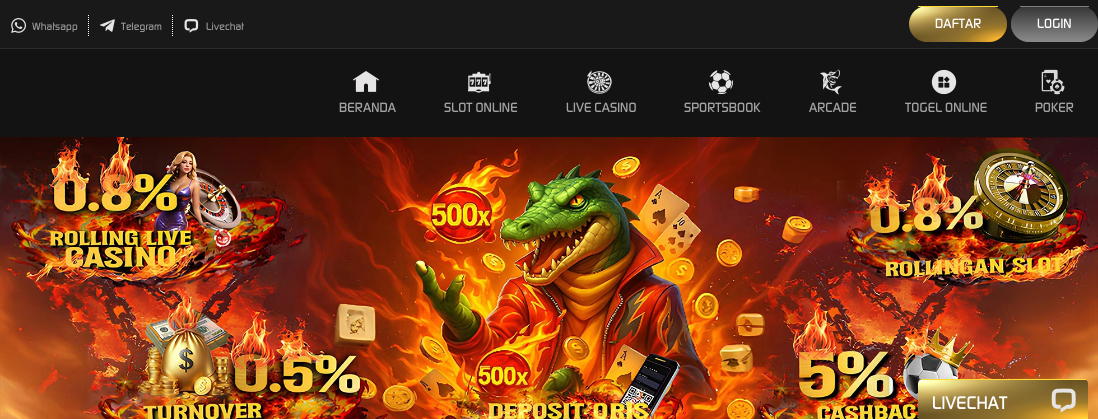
import math
import cairo


def write_spaced(ctx, x, y, s, letter, word):
	ctx.move_to(x, y)
	for ch in s:
		ctx.show_text(ch)
		ctx.rel_move_to(letter + word * (ch == ' '), 0)

def round_path(ctx, x, y, w, h, r):
	ctx.new_sub_path()
	for i, (u, v) in enumerate([(x + w - r, y + h - r), (x + r, y + h - r), (x + r, y + r), (x + w - r, y + r)]):
		ctx.arc(u, v, r, i * math.pi / 2, (i + 1) * math.pi / 2)
	ctx.close_path()

def paste(ctx, path, x, y, w, h):
	ctx.save()
	ctx.set_source_surface(cairo.ImageSurface.create_from_png(path), x, y)
	ctx.rectangle(x, y, w, h)
	ctx.fill()
	ctx.restore()

def draw(ctx):
	ctx.set_source_rgb(1, 1, 1)
	ctx.paint()
	ctx.set_source_rgb(0.098, 0.098, 0.098)
	ctx.rectangle(0, 0, 1098, 48)
	ctx.fill()
	ctx.new_path()
	ctx.move_to(88.5, 15)
	ctx.line_to(88.5, 37)
	ctx.set_source_rgb(1, 1, 1)
	ctx.set_line_width(1)
	ctx.set_dash([1, 1])
	ctx.stroke()
	paste(ctx, 'media/1.png', 11, 18, 15, 15)
	ctx.select_font_face('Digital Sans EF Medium')
	ctx.set_font_size(11)
	ctx.set_source_rgb(0.604, 0.604, 0.604)
	write_spaced(ctx, 32, 30, 'Whatsapp', 0.1, 0)
	ctx.new_path()
	ctx.move_to(172.5, 15)
	ctx.line_to(172.5, 37)
	ctx.set_source_rgb(1, 1, 1)
	ctx.stroke()
	paste(ctx, 'media/2.png', 100, 19, 15, 13)
	ctx.set_source_rgb(0.604, 0.604, 0.604)
	write_spaced(ctx, 121, 30, 'Telegram', 0.1, 0)
	paste(ctx, 'media/3.png', 184, 19, 15, 14)
	write_spaced(ctx, 206, 30, 'Livechat', 0.1, 0)
	ctx.save()
	round_path(ctx, 909, 6, 98, 36, 18)
	ctx.clip()
	gradient = cairo.RadialGradient(0, 0, 0, 0, 0, 1)
	gradient.set_matrix(cairo.Matrix(1 / 139, 0, 0, 1 / 49, -1 * 909 / 139, -1 * 7 / 49))
	gradient.add_color_stop_rgba(0, 1, 1, 1, 1)
	gradient.add_color_stop_rgba(0.08, 1, 1, 0.675, 1)
	gradient.add_color_stop_rgba(0.25, 0.82, 0.706, 0.392, 1)
	gradient.add_color_stop_rgba(0.62, 0.365, 0.29, 0.122, 1)
	gradient.add_color_stop_rgba(1, 0.365, 0.29, 0.122, 1)
	ctx.set_source(gradient)
	ctx.new_path()
	ctx.move_to(909, 7)
	ctx.line_to(1007, 7)
	ctx.line_to(1007, 24)
	ctx.curve_to(1007, 34, 999, 42, 989, 42)
	ctx.line_to(927, 42)
	ctx.curve_to(917, 42, 909, 34, 909, 24)
	ctx.close_path()
	ctx.fill()
	gradient = cairo.RadialGradient(0, 0, 0, 0, 0, 1)
	gradient.set_matrix(cairo.Matrix(1 / 139, 0, 0, 1 / 49, -1 * 1007 / 139, -1 * 42 / 49))
	gradient.add_color_stop_rgba(0, 0.996, 0.859, 0.216, 1)
	gradient.add_color_stop_rgba(0.08, 0.992, 0.725, 0.192, 1)
	gradient.add_color_stop_rgba(0.3, 0.624, 0.475, 0.157, 1)
	gradient.add_color_stop_rgba(0.4, 0.541, 0.431, 0.184, 1)
	gradient.add_color_stop_rgba(0.8, 0.541, 0.431, 0.184, 0)
	ctx.set_source(gradient)
	ctx.new_path()
	ctx.move_to(909, 7)
	ctx.line_to(1007, 7)
	ctx.line_to(1007, 24)
	ctx.curve_to(1007, 34, 999, 42, 989, 42)
	ctx.line_to(927, 42)
	ctx.curve_to(917, 42, 909, 34, 909, 24)
	ctx.close_path()
	ctx.fill()
	ctx.restore()
	ctx.set_source_rgb(0.996, 0.859, 0.216)
	ctx.rectangle(918, 6, 80, 1)
	ctx.fill()
	ctx.set_font_size(14)
	ctx.set_source_rgb(1, 1, 1)
	write_spaced(ctx, 935, 28, 'DAFTAR', 0.1, 0)
	ctx.set_source_rgb(0.314, 0.314, 0.314)
	round_path(ctx, 1011, 6, 87, 36, 18)
	ctx.fill()
	ctx.save()
	round_path(ctx, 1011, 6, 87, 36, 18)
	ctx.clip()
	gradient = cairo.LinearGradient(1055, 7, 1055, 42)
	gradient.add_color_stop_rgba(0, 0.216, 0.216, 0.216, 1)
	gradient.add_color_stop_rgba(1, 0.545, 0.545, 0.545, 1)
	ctx.set_source(gradient)
	ctx.new_path()
	ctx.move_to(1011, 7)
	ctx.line_to(1098, 7)
	ctx.line_to(1098, 24)
	ctx.curve_to(1098, 34, 1090, 42, 1080, 42)
	ctx.line_to(1029, 42)
	ctx.curve_to(1019, 42, 1011, 34, 1011, 24)
	ctx.close_path()
	ctx.fill()
	ctx.restore()
	ctx.set_source_rgb(0.494, 0.494, 0.494)
	ctx.rectangle(1020, 6, 69, 1)
	ctx.fill()
	ctx.set_source_rgb(1, 1, 1)
	write_spaced(ctx, 1037, 28, 'LOGIN', 0.1, 0)
	ctx.set_source_rgb(0.078, 0.078, 0.078)
	ctx.rectangle(0, 49, 1098, 88)
	ctx.fill()
	ctx.set_source_rgb(0.169, 0.169, 0.169)
	ctx.rectangle(0, 48, 1098, 1)
	ctx.fill()
	paste(ctx, 'media/4.png', 353, 71, 26, 21)
	ctx.set_source_rgb(0.639, 0.639, 0.639)
	write_spaced(ctx, 339, 112, 'BERANDA', 0.1, 0)
	paste(ctx, 'media/5.png', 467, 71, 24, 22)
	write_spaced(ctx, 444, 112, 'SLOT ONLINE', 0.1, 0)
	paste(ctx, 'media/6.png', 587, 70, 25, 24)
	write_spaced(ctx, 566, 112, 'LIVE CASINO', 0.1, 0)
	paste(ctx, 'media/7.png', 708, 69, 26, 26)
	write_spaced(ctx, 684, 112, 'SPORTSBOOK', 0.1, 0)
	paste(ctx, 'media/8.png', 820, 69, 22, 26)
	write_spaced(ctx, 809, 112, 'ARCADE', 0.1, 0)
	paste(ctx, 'media/9.png', 931, 69, 26, 26)
	write_spaced(ctx, 905, 112, 'TOGEL ONLINE', 0.1, 0)
	paste(ctx, 'media/10.png', 1041, 69, 24, 26)
	write_spaced(ctx, 1035, 112, 'POKER', 0.1, 0)
	paste(ctx, 'media/11.png', 0, 137, 1098, 282)
	ctx.save()
	ctx.new_path()
	ctx.move_to(923, 379)
	ctx.line_to(1083, 379)
	ctx.curve_to(1086, 379, 1088, 381, 1088, 384)
	ctx.line_to(1088, 419)
	ctx.line_to(918, 419)
	ctx.line_to(918, 384)
	ctx.curve_to(918, 381, 920, 379, 923, 379)
	ctx.close_path()
	ctx.clip()
	gradient = cairo.RadialGradient(0, 0, 0, 0, 0, 1)
	gradient.set_matrix(cairo.Matrix(1 / 240, 0, 0, 1 / 55, -1 * 918 / 240, -1 * 341 / 55))
	gradient.add_color_stop_rgba(0, 1, 1, 1, 1)
	gradient.add_color_stop_rgba(0.08, 1, 1, 0.675, 1)
	gradient.add_color_stop_rgba(0.25, 0.82, 0.706, 0.392, 1)
	gradient.add_color_stop_rgba(0.63, 0.365, 0.29, 0.122, 1)
	gradient.add_color_stop_rgba(1, 0.365, 0.29, 0.122, 1)
	ctx.set_source(gradient)
	ctx.rectangle(918, 379, 3, 1)
	ctx.fill()
	gradient = cairo.RadialGradient(0, 0, 0, 0, 0, 1)
	gradient.set_matrix(cairo.Matrix(1 / 240, 0, 0, 1 / 55, -1 * 918 / 240, -1 * 380 / 55))
	gradient.add_color_stop_rgba(0, 1, 1, 1, 1)
	gradient.add_color_stop_rgba(0.08, 1, 1, 0.675, 1)
	gradient.add_color_stop_rgba(0.25, 0.82, 0.706, 0.392, 1)
	gradient.add_color_stop_rgba(0.63, 0.365, 0.29, 0.122, 1)
	gradient.add_color_stop_rgba(1, 0.365, 0.29, 0.122, 1)
	ctx.set_source(gradient)
	ctx.rectangle(918, 380, 170, 39)
	ctx.fill()
	gradient = cairo.RadialGradient(0, 0, 0, 0, 0, 1)
	gradient.set_matrix(cairo.Matrix(1 / 240, 0, 0, 1 / 55, -1 * 1088 / 240, -1 * 380 / 55))
	gradient.add_color_stop_rgba(0, 0.996, 0.859, 0.216, 1)
	gradient.add_color_stop_rgba(0.08, 0.992, 0.725, 0.192, 1)
	gradient.add_color_stop_rgba(0.3, 0.624, 0.475, 0.157, 1)
	gradient.add_color_stop_rgba(0.4, 0.541, 0.431, 0.184, 1)
	gradient.add_color_stop_rgba(0.8, 0.541, 0.431, 0.184, 0)
	ctx.set_source(gradient)
	ctx.rectangle(918, 379, 3, 1)
	ctx.fill()
	gradient = cairo.RadialGradient(0, 0, 0, 0, 0, 1)
	gradient.set_matrix(cairo.Matrix(1 / 240, 0, 0, 1 / 55, -1 * 1088 / 240, -1 * 419 / 55))
	gradient.add_color_stop_rgba(0, 0.996, 0.859, 0.216, 1)
	gradient.add_color_stop_rgba(0.08, 0.992, 0.725, 0.192, 1)
	gradient.add_color_stop_rgba(0.3, 0.624, 0.475, 0.157, 1)
	gradient.add_color_stop_rgba(0.4, 0.541, 0.431, 0.184, 1)
	gradient.add_color_stop_rgba(0.8, 0.541, 0.431, 0.184, 0)
	ctx.set_source(gradient)
	ctx.rectangle(918, 380, 170, 39)
	ctx.fill()
	ctx.restore()
	ctx.set_source_rgb(0.996, 0.859, 0.216)
	ctx.rectangle(921, 379, 165, 1)
	ctx.fill()
	ctx.set_font_size(19)
	ctx.set_source_rgb(1, 1, 1)
	write_spaced(ctx, 932, 409, 'LIVECHAT', 0.1, 0)
	paste(ctx, 'media/12.png', 1051, 388, 25, 25)


surface = cairo.ImageSurface(cairo.FORMAT_RGB24, 1098, 419)
ctx = cairo.Context(surface)
options = cairo.FontOptions()
options.set_hint_metrics(cairo.HINT_METRICS_OFF)
options.set_hint_style(cairo.HINT_STYLE_NONE)
ctx.set_font_options(options)
ctx.set_miter_limit(4)
draw(ctx)
surface.write_to_png('image.png')
